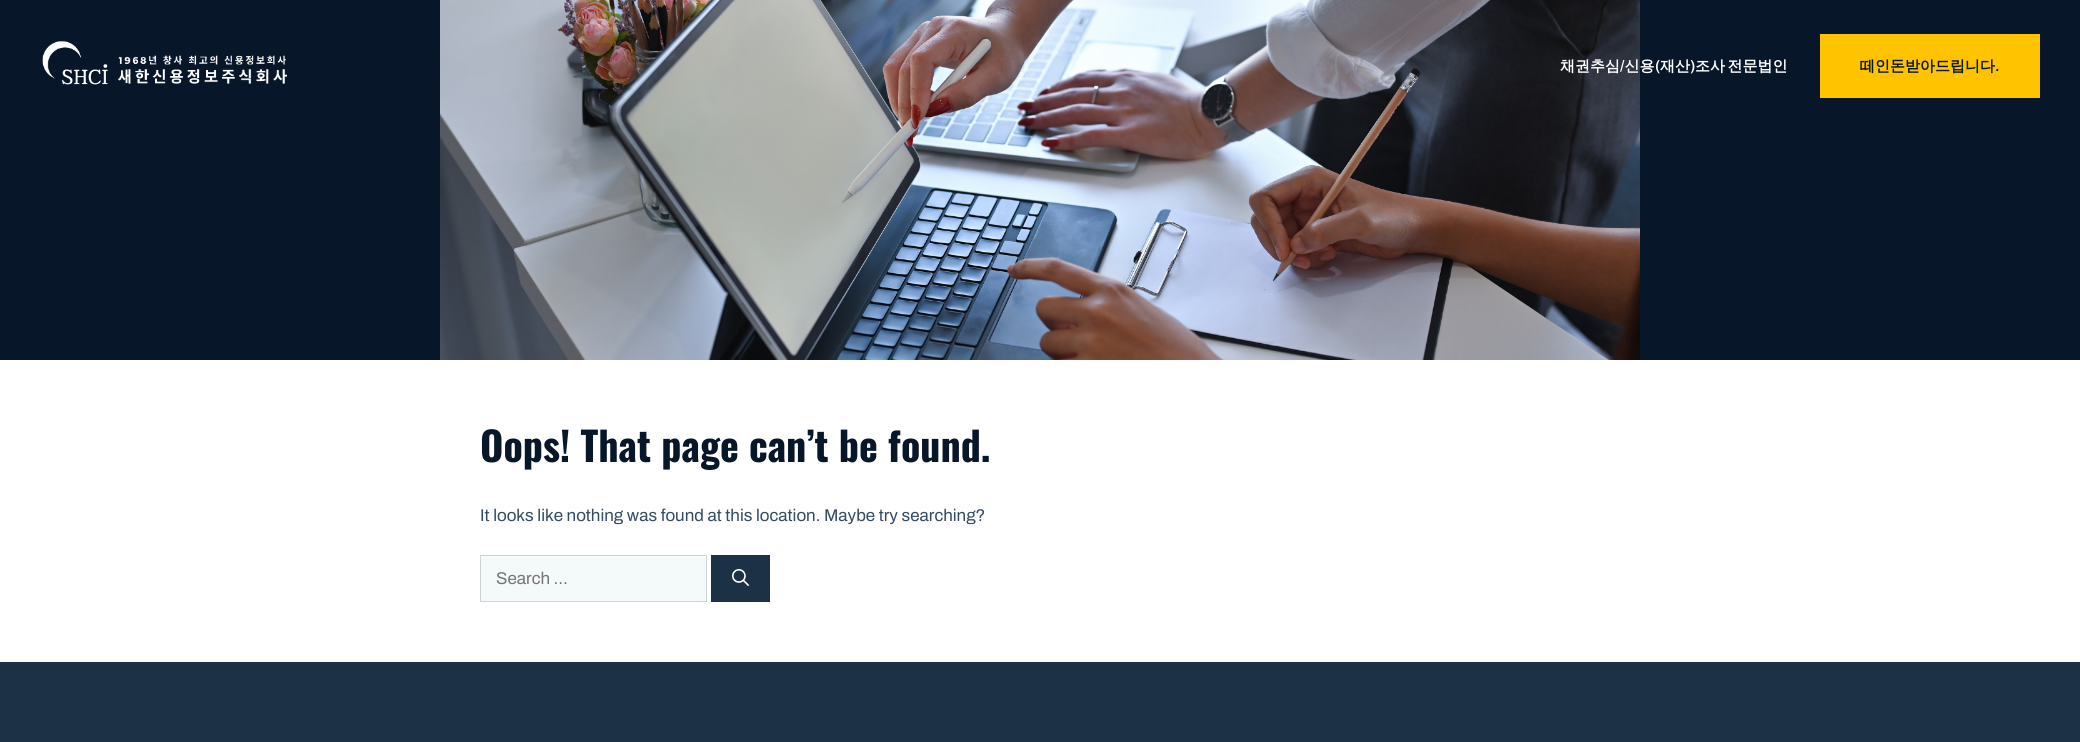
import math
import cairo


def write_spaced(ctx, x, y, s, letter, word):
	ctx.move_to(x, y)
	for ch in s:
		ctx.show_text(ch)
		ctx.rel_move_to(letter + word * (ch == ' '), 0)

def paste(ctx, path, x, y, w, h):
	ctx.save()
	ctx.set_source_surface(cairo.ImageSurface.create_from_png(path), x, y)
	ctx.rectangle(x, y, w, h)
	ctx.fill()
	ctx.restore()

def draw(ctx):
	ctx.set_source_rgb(1, 1, 1)
	ctx.paint()
	ctx.set_source_rgb(0.035, 0.086, 0.165)
	ctx.rectangle(0, 0, 2080, 360)
	ctx.fill()
	paste(ctx, 'media/1.png', 440, 0, 1200, 360)
	paste(ctx, 'media/2.png', 42, 41, 245, 44)
	ctx.select_font_face('WenQuanYi Zen Hei', cairo.FONT_SLANT_NORMAL, cairo.FONT_WEIGHT_BOLD)
	ctx.set_font_size(15)
	ctx.set_source_rgb(1, 1, 1)
	ctx.move_to(1560, 71)
	ctx.show_text('채권추심 신용')
	ctx.select_font_face('Archivo SemiBold')
	ctx.move_to(1655, 71)
	ctx.show_text('(')
	ctx.select_font_face('WenQuanYi Zen Hei', cairo.FONT_SLANT_NORMAL, cairo.FONT_WEIGHT_BOLD)
	ctx.move_to(1660, 71)
	ctx.show_text('재산')
	write_spaced(ctx, 1695, 71, '조사 전문법인', 0, -2)
	ctx.select_font_face('Archivo SemiBold')
	ctx.move_to(1620, 71)
	ctx.show_text('/')
	ctx.move_to(1690, 71)
	ctx.show_text(')')
	ctx.set_source_rgb(1, 0.765, 0)
	ctx.rectangle(1820, 34, 220, 64)
	ctx.fill()
	ctx.select_font_face('WenQuanYi Zen Hei', cairo.FONT_SLANT_NORMAL, cairo.FONT_WEIGHT_BOLD)
	ctx.set_source_rgb(0.035, 0.086, 0.165)
	ctx.move_to(1860, 71)
	ctx.show_text('떼인돈받아드립니다')
	ctx.select_font_face('Archivo SemiBold')
	ctx.move_to(1995, 71)
	ctx.show_text('.')
	ctx.select_font_face('Oswald', cairo.FONT_SLANT_NORMAL, cairo.FONT_WEIGHT_BOLD)
	ctx.set_font_size(40)
	ctx.move_to(480, 462)
	ctx.show_text('Oops! That page can’t be found.')
	ctx.select_font_face('Archivo')
	ctx.set_font_size(17)
	ctx.set_source_rgb(0.204, 0.294, 0.392)
	ctx.move_to(480, 521)
	ctx.show_text('It looks like nothing was found at this location. Maybe try searching?')
	ctx.set_source_rgb(0.957, 0.973, 0.98)
	ctx.rectangle(480.5, 555.5, 226, 46)
	ctx.fill_preserve()
	ctx.set_source_rgb(0.808, 0.827, 0.827)
	ctx.set_line_width(1)
	ctx.stroke()
	ctx.set_source_rgb(0.459, 0.459, 0.459)
	ctx.move_to(496, 584)
	ctx.show_text('Search …')
	ctx.set_source_rgb(0.11, 0.192, 0.271)
	ctx.rectangle(711, 555, 59, 47)
	ctx.fill()
	paste(ctx, 'media/3.png', 732, 569, 17, 17)
	ctx.rectangle(0, 662, 2080, 80)
	ctx.fill()


surface = cairo.ImageSurface(cairo.FORMAT_RGB24, 2080, 742)
ctx = cairo.Context(surface)
options = cairo.FontOptions()
options.set_hint_metrics(cairo.HINT_METRICS_OFF)
options.set_hint_style(cairo.HINT_STYLE_NONE)
ctx.set_font_options(options)
ctx.set_miter_limit(4)
draw(ctx)
surface.write_to_png('image.png')
